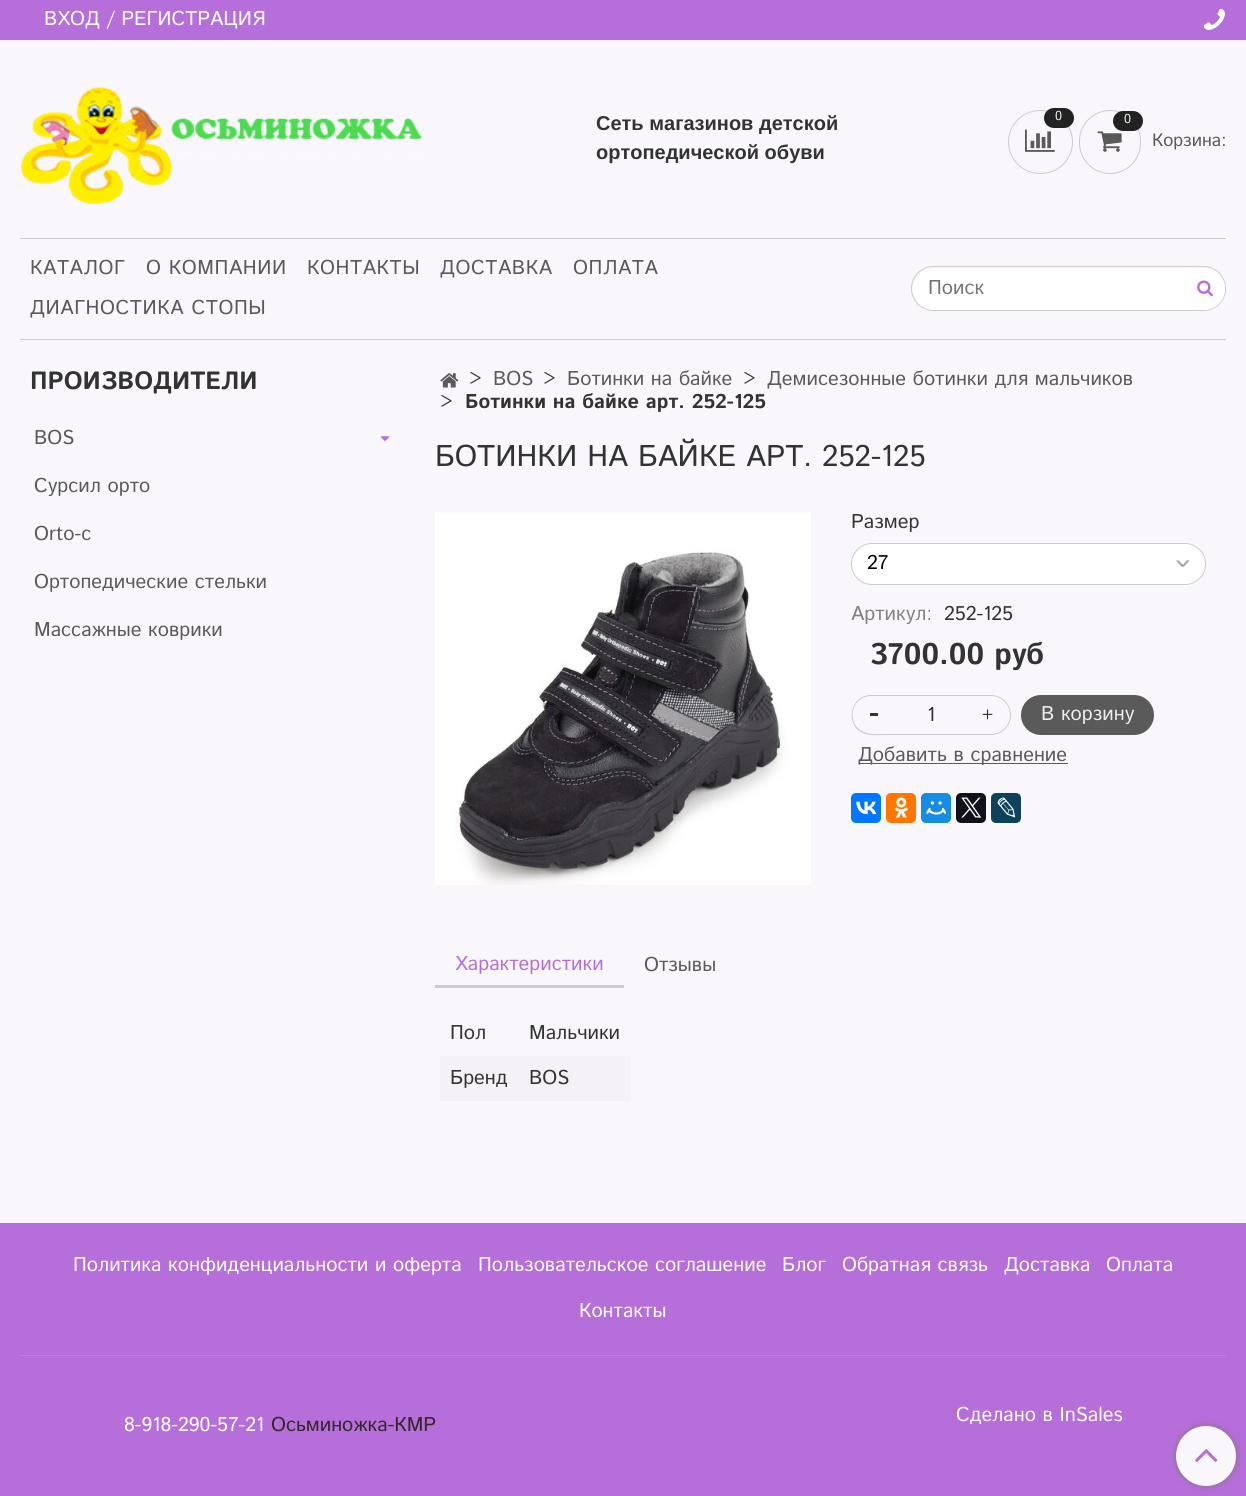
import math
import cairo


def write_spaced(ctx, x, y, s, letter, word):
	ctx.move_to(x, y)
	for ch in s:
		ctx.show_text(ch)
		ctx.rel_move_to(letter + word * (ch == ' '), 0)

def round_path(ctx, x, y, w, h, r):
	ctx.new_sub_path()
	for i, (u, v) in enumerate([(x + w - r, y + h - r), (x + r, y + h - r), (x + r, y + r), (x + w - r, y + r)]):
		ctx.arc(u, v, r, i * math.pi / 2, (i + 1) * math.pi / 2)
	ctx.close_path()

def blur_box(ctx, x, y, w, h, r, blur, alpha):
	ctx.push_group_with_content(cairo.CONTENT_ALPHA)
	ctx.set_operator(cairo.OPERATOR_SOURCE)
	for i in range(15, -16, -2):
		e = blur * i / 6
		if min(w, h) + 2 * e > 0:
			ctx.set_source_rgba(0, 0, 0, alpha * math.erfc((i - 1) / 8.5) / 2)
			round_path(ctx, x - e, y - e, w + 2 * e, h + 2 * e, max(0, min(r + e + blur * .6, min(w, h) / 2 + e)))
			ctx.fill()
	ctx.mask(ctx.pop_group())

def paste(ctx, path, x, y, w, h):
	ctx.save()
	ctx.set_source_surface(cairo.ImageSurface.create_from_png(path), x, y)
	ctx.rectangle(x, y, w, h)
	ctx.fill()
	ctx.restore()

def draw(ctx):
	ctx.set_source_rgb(0.714, 0.431, 0.855)
	ctx.paint()
	ctx.select_font_face('Istok Web')
	ctx.set_font_size(20)
	ctx.set_source_rgb(1, 1, 1)
	ctx.move_to(44, 25)
	ctx.show_text('ВХОД / РЕГИСТРАЦИЯ')
	paste(ctx, 'media/1.png', 1203, 8, 22, 22)
	ctx.set_source_rgb(0.976, 0.965, 0.984)
	ctx.rectangle(0, 40, 1246, 1183)
	ctx.fill()
	paste(ctx, 'media/2.png', 21, 87, 402, 117)
	ctx.select_font_face('Liberation Sans', cairo.FONT_SLANT_NORMAL, cairo.FONT_WEIGHT_BOLD)
	ctx.set_source_rgb(0.2, 0.2, 0.2)
	ctx.move_to(596, 130)
	ctx.show_text('Сеть магазинов детской')
	ctx.move_to(596, 159)
	ctx.show_text('ортопедической обуви')
	round_path(ctx, 1008.5, 110.5, 64, 63, 31.5)
	ctx.set_source_rgb(0.8, 0.8, 0.8)
	ctx.set_line_width(1)
	ctx.stroke()
	ctx.set_source_rgb(0.133, 0.133, 0.133)
	round_path(ctx, 1044, 108, 30, 20, 10)
	ctx.fill()
	ctx.select_font_face('Istok Web')
	ctx.set_font_size(13)
	ctx.set_source_rgb(0.933, 0.933, 0.933)
	ctx.move_to(1055, 120)
	ctx.show_text('0')
	paste(ctx, 'media/3.png', 1025, 129, 30, 23)
	round_path(ctx, 1079.5, 110.5, 61, 63, 30.5)
	ctx.set_source_rgb(0.8, 0.8, 0.8)
	ctx.stroke()
	ctx.set_source_rgb(0.133, 0.133, 0.133)
	round_path(ctx, 1113, 111, 30, 20, 10)
	ctx.fill()
	ctx.set_source_rgb(0.933, 0.933, 0.933)
	ctx.move_to(1124, 123)
	ctx.show_text('0')
	paste(ctx, 'media/4.png', 1097, 131, 25, 21)
	ctx.set_font_size(18)
	ctx.set_source_rgb(0.353, 0.353, 0.353)
	ctx.move_to(1152, 146)
	ctx.show_text('Корзина:')
	ctx.set_source_rgb(0.8, 0.8, 0.8)
	ctx.rectangle(20, 238, 1206, 1)
	ctx.fill()
	ctx.rectangle(20, 339, 1206, 1)
	ctx.fill()
	ctx.set_font_size(20)
	ctx.set_source_rgb(0.353, 0.353, 0.353)
	for x, y, s in [
		(30, 274, 'КАТАЛОГ'),
		(146, 274, 'О КОМПАНИИ'),
		(307, 274, 'КОНТАКТЫ'),
		(440, 274, 'ДОСТАВКА'),
		(573, 274, 'ОПЛАТА'),
		(30, 314, 'ДИАГНОСТИКА СТОПЫ'),
	]:
		write_spaced(ctx, x, y, s, 0.6, 0)
	round_path(ctx, 911.5, 266.5, 314, 44, 22)
	ctx.set_source_rgb(0.8, 0.8, 0.8)
	ctx.stroke()
	ctx.set_source_rgb(1, 1, 1)
	ctx.new_path()
	ctx.move_to(934, 268)
	ctx.line_to(1185, 268)
	ctx.line_to(1185, 310)
	ctx.line_to(934, 310)
	ctx.curve_to(922.5, 310, 913, 300.5, 913, 289)
	ctx.curve_to(913, 277.5, 922.5, 268, 934, 268)
	ctx.close_path()
	ctx.fill()
	ctx.set_source_rgb(0.459, 0.459, 0.459)
	ctx.move_to(928, 294)
	ctx.show_text('Поиск')
	ctx.set_source_rgb(1, 1, 1)
	ctx.new_path()
	ctx.move_to(1185, 268)
	ctx.line_to(1204, 268)
	ctx.curve_to(1215.5, 268, 1225, 277.5, 1225, 289)
	ctx.curve_to(1225, 300.5, 1215.5, 310, 1204, 310)
	ctx.line_to(1185, 310)
	ctx.close_path()
	ctx.fill()
	paste(ctx, 'media/5.png', 1197, 280, 16, 17)
	ctx.select_font_face('Istok Web', cairo.FONT_SLANT_NORMAL, cairo.FONT_WEIGHT_BOLD)
	ctx.set_font_size(25)
	ctx.set_source_rgb(0.2, 0.2, 0.2)
	ctx.move_to(30, 389)
	ctx.show_text('ПРОИЗВОДИТЕЛИ')
	ctx.select_font_face('Istok Web')
	ctx.set_font_size(20)
	ctx.set_source_rgb(0.353, 0.353, 0.353)
	ctx.move_to(34, 444)
	ctx.show_text('BOS')
	paste(ctx, 'media/6.png', 380, 436, 10, 5)
	for x, y, s in [
		(34, 492, 'Сурсил орто'),
		(34, 540, 'Orto-c'),
		(34, 588, 'Ортопедические стельки'),
		(34, 636, 'Массажные коврики'),
	]:
		ctx.move_to(x, y)
		ctx.show_text(s)
	paste(ctx, 'media/7.png', 440, 373, 19, 15)
	ctx.set_source_rgb(0.2, 0.2, 0.2)
	ctx.move_to(469, 385)
	ctx.show_text('>')
	ctx.set_source_rgb(0.353, 0.353, 0.353)
	ctx.move_to(493, 385)
	ctx.show_text('BOS')
	ctx.set_source_rgb(0.2, 0.2, 0.2)
	ctx.move_to(543, 385)
	ctx.show_text('>')
	ctx.set_source_rgb(0.353, 0.353, 0.353)
	ctx.move_to(567, 385)
	ctx.show_text('Ботинки на байке')
	ctx.set_source_rgb(0.2, 0.2, 0.2)
	ctx.move_to(743, 385)
	ctx.show_text('>')
	ctx.set_source_rgb(0.353, 0.353, 0.353)
	ctx.move_to(767, 385)
	ctx.show_text('Демисезонные ботинки для мальчиков')
	ctx.set_source_rgb(0.2, 0.2, 0.2)
	ctx.move_to(440, 408)
	ctx.show_text('>')
	ctx.select_font_face('Istok Web', cairo.FONT_SLANT_NORMAL, cairo.FONT_WEIGHT_BOLD)
	ctx.move_to(465, 408)
	ctx.show_text('Ботинки на байке арт. 252-125')
	ctx.select_font_face('Istok Web')
	ctx.set_font_size(30)
	ctx.move_to(435, 466)
	ctx.show_text('БОТИНКИ НА БАЙКЕ АРТ. 252-125')
	paste(ctx, 'media/8.png', 435, 512, 376, 373)
	ctx.set_font_size(20)
	ctx.move_to(851, 528)
	ctx.show_text('Размер')
	ctx.set_source_rgb(1, 1, 1)
	round_path(ctx, 851, 543, 355, 42, 21)
	ctx.fill()
	paste(ctx, 'media/9.png', 1176, 559, 13, 9)
	round_path(ctx, 851.5, 543.5, 354, 41, 20.5)
	ctx.set_source_rgb(0.8, 0.8, 0.8)
	ctx.stroke()
	ctx.set_source_rgb(0, 0, 0)
	ctx.move_to(867, 569)
	ctx.show_text('27')
	ctx.set_source_rgb(0.51, 0.506, 0.514)
	ctx.move_to(851, 620)
	ctx.show_text('Артикул:')
	ctx.set_source_rgb(0.2, 0.2, 0.2)
	ctx.move_to(944, 620)
	ctx.show_text('252-125')
	ctx.select_font_face('Istok Web', cairo.FONT_SLANT_NORMAL, cairo.FONT_WEIGHT_BOLD)
	ctx.set_font_size(30)
	ctx.move_to(870, 664)
	ctx.show_text('3700.00 руб')
	ctx.set_source_rgb(0.8, 0.8, 0.8)
	ctx.set_fill_rule(cairo.FILL_RULE_EVEN_ODD)
	ctx.new_path()
	ctx.move_to(871, 695)
	ctx.line_to(886, 695)
	ctx.line_to(886, 735)
	ctx.curve_to(879, 735, 870, 736, 863, 733)
	ctx.curve_to(844, 725, 850, 695, 871, 695)
	ctx.close_path()
	ctx.move_to(871, 696)
	ctx.line_to(886, 696)
	ctx.line_to(886, 734)
	ctx.curve_to(879, 734, 871, 735, 864, 732)
	ctx.curve_to(845, 724, 851, 696, 871, 696)
	ctx.close_path()
	ctx.fill()
	ctx.set_source_rgb(0.2, 0.2, 0.2)
	ctx.rectangle(870, 713, 8, 3)
	ctx.fill()
	ctx.set_source_rgb(0.8, 0.8, 0.8)
	ctx.rectangle(886, 695, 90, 1)
	ctx.rectangle(886, 734, 90, 1)
	ctx.fill()
	ctx.select_font_face('Istok Web')
	ctx.set_font_size(20)
	ctx.set_source_rgb(0.2, 0.2, 0.2)
	ctx.move_to(927, 721)
	ctx.show_text('1')
	ctx.set_source_rgb(0.8, 0.8, 0.8)
	ctx.new_path()
	ctx.move_to(976, 695)
	ctx.line_to(991, 695)
	ctx.curve_to(1002, 695, 1011, 704, 1011, 715)
	ctx.curve_to(1011, 726, 1002, 735, 991, 735)
	ctx.line_to(976, 735)
	ctx.close_path()
	ctx.move_to(976, 696)
	ctx.line_to(991, 696)
	ctx.curve_to(1002, 696, 1010, 705, 1010, 715)
	ctx.curve_to(1010, 725, 1002, 734, 991, 734)
	ctx.line_to(976, 734)
	ctx.close_path()
	ctx.fill()
	paste(ctx, 'media/10.png', 982, 709, 11, 11)
	ctx.set_source_rgb(0.353, 0.353, 0.353)
	round_path(ctx, 1021, 695, 133, 40, 20)
	ctx.fill()
	ctx.set_source_rgb(0.933, 0.933, 0.933)
	ctx.move_to(1041, 720)
	ctx.show_text('В корзину')
	ctx.set_source_rgb(0.353, 0.353, 0.353)
	ctx.rectangle(859, 763, 209, 1)
	ctx.fill()
	ctx.move_to(858, 761)
	ctx.show_text('Добавить в сравнение')
	ctx.set_source_rgb(0, 0.467, 1)
	round_path(ctx, 851, 793, 30, 30, 5)
	ctx.fill()
	paste(ctx, 'media/11.png', 856, 801, 21, 14)
	ctx.set_source_rgb(1, 0.467, 0)
	round_path(ctx, 886, 793, 30, 30, 5)
	ctx.fill()
	paste(ctx, 'media/12.png', 894, 797, 14, 21)
	ctx.set_source_rgb(0.086, 0.553, 0.886)
	round_path(ctx, 921, 793, 30, 30, 5)
	ctx.fill()
	paste(ctx, 'media/13.png', 926, 801, 21, 14)
	ctx.set_source_rgb(0.059, 0.078, 0.098)
	round_path(ctx, 956, 793, 30, 30, 5)
	ctx.fill()
	paste(ctx, 'media/14.png', 961, 797, 21, 21)
	ctx.set_source_rgb(0.051, 0.259, 0.353)
	round_path(ctx, 991, 793, 30, 30, 5)
	ctx.fill()
	paste(ctx, 'media/15.png', 997, 797, 19, 21)
	ctx.set_source_rgb(0.8, 0.8, 0.8)
	ctx.rectangle(435, 985, 189, 3)
	ctx.fill()
	ctx.set_source_rgb(0.714, 0.431, 0.855)
	ctx.move_to(455, 970)
	ctx.show_text('Характеристики')
	ctx.set_source_rgb(0.353, 0.353, 0.353)
	ctx.move_to(644, 971)
	ctx.show_text('Отзывы')
	ctx.set_source_rgb(0.2, 0.2, 0.2)
	ctx.move_to(450, 1039)
	ctx.show_text('Пол')
	ctx.move_to(529, 1039)
	ctx.show_text('Мальчики')
	ctx.set_source_rgb(0.957, 0.949, 0.961)
	ctx.rectangle(440, 1056, 191, 45)
	ctx.fill()
	ctx.set_source_rgb(0.2, 0.2, 0.2)
	ctx.move_to(450, 1084)
	ctx.show_text('Бренд')
	ctx.move_to(529, 1084)
	ctx.show_text('BOS')
	ctx.set_source_rgb(0.706, 0.51, 0.941)
	ctx.rectangle(20, 1355, 1206, 1)
	ctx.fill()
	ctx.set_source_rgb(1, 1, 1)
	for x, y, s in [
		(73, 1271, 'Политика конфиденциальности и оферта'),
		(478, 1271, 'Пользовательское соглашение'),
		(782, 1271, 'Блог'),
		(842, 1271, 'Обратная связь'),
		(1004, 1271, 'Доставка'),
		(1106, 1271, 'Оплата'),
		(579, 1317, 'Контакты'),
		(124, 1431, '8-918-290-57-21'),
	]:
		ctx.move_to(x, y)
		ctx.show_text(s)
	ctx.set_source_rgb(0.192, 0.157, 0.157)
	ctx.move_to(271, 1431)
	ctx.show_text('Осьминожка-КМР')
	ctx.set_source_rgb(1, 1, 1)
	ctx.move_to(956, 1421)
	ctx.show_text('Сделано в InSales')
	ctx.set_source_rgb(0.467, 0.467, 0.467)
	blur_box(ctx, 1176, 1426, 60, 60, 30, 3, 1)
	ctx.set_source_rgb(0.976, 0.965, 0.984)
	ctx.arc(1206, 1456, 30, 0, 2 * math.pi)
	ctx.fill()
	paste(ctx, 'media/16.png', 1195, 1449, 23, 13)


surface = cairo.ImageSurface(cairo.FORMAT_RGB24, 1246, 1496)
ctx = cairo.Context(surface)
options = cairo.FontOptions()
options.set_hint_metrics(cairo.HINT_METRICS_OFF)
options.set_hint_style(cairo.HINT_STYLE_NONE)
ctx.set_font_options(options)
ctx.set_miter_limit(4)
draw(ctx)
surface.write_to_png('image.png')
